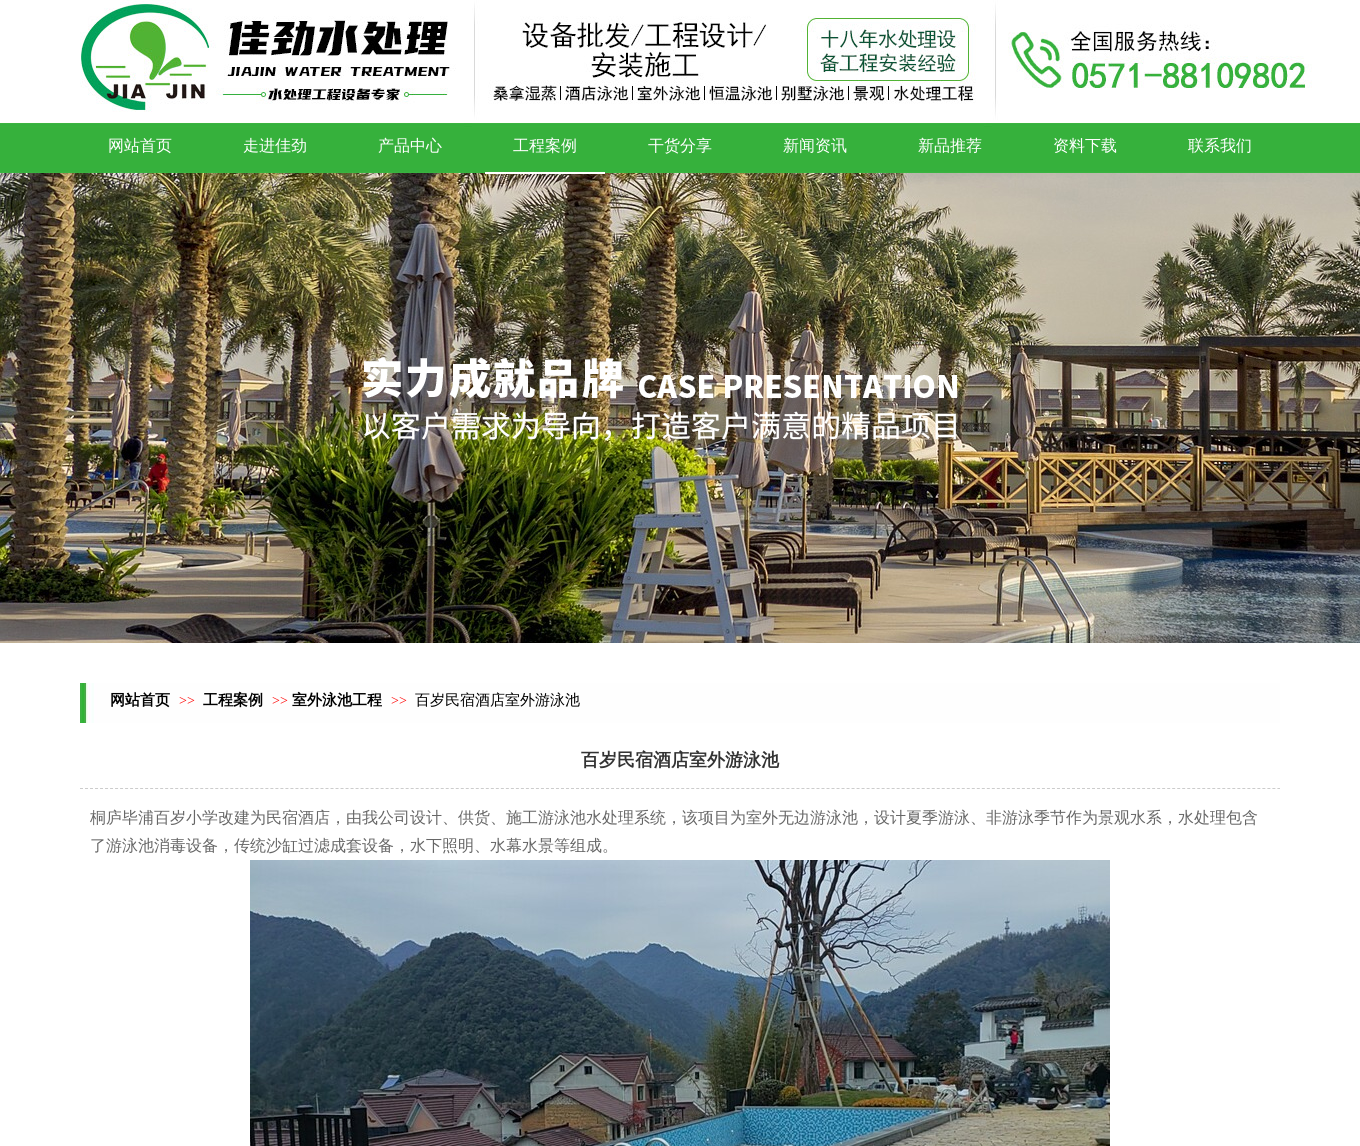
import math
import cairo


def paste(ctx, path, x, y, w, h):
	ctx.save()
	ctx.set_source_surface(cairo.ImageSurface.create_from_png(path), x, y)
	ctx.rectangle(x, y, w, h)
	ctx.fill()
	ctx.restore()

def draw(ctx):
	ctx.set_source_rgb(1, 1, 1)
	ctx.paint()
	paste(ctx, 'media/1.png', 0, 0, 1360, 173)
	ctx.select_font_face('WenQuanYi Zen Hei Medium')
	ctx.set_font_size(16)
	ctx.set_source_rgb(1, 1, 1)
	for x, y, s in [
		(108, 151, '网站首页'),
		(243, 151, '走进佳劲'),
		(378, 151, '产品中心'),
	]:
		ctx.move_to(x, y)
		ctx.show_text(s)
	paste(ctx, 'media/2.png', 0, 173, 1360, 470)
	ctx.rectangle(485, 172, 120, 2)
	ctx.fill()
	for x, y, s in [
		(513, 151, '工程案例'),
		(648, 151, '干货分享'),
		(783, 151, '新闻资讯'),
		(918, 151, '新品推荐'),
		(1053, 151, '资料下载'),
		(1188, 151, '联系我们'),
	]:
		ctx.move_to(x, y)
		ctx.show_text(s)
	paste(ctx, 'media/3.png', 80, 683, 1200, 40)
	ctx.select_font_face('WenQuanYi Zen Hei', cairo.FONT_SLANT_NORMAL, cairo.FONT_WEIGHT_BOLD)
	ctx.set_font_size(15)
	ctx.set_source_rgb(0, 0, 0)
	ctx.move_to(110, 705)
	ctx.show_text('网站首页')
	ctx.select_font_face('Liberation Serif')
	ctx.set_font_size(14)
	ctx.set_source_rgb(1, 0.004, 0.004)
	ctx.move_to(179, 705)
	ctx.show_text('>>')
	ctx.select_font_face('WenQuanYi Zen Hei', cairo.FONT_SLANT_NORMAL, cairo.FONT_WEIGHT_BOLD)
	ctx.set_font_size(15)
	ctx.set_source_rgb(0, 0, 0)
	ctx.move_to(203, 705)
	ctx.show_text('工程案例')
	ctx.select_font_face('Liberation Serif')
	ctx.set_font_size(14)
	ctx.set_source_rgb(1, 0.004, 0.004)
	ctx.move_to(272, 705)
	ctx.show_text('>>')
	ctx.select_font_face('WenQuanYi Zen Hei', cairo.FONT_SLANT_NORMAL, cairo.FONT_WEIGHT_BOLD)
	ctx.set_font_size(15)
	ctx.set_source_rgb(0, 0, 0)
	ctx.move_to(292, 705)
	ctx.show_text('室外泳池工程')
	ctx.select_font_face('Liberation Serif')
	ctx.set_font_size(14)
	ctx.set_source_rgb(1, 0.004, 0.004)
	ctx.move_to(391, 705)
	ctx.show_text('>>')
	ctx.select_font_face('WenQuanYi Zen Hei Medium')
	ctx.set_font_size(15)
	ctx.set_source_rgb(0, 0, 0)
	ctx.move_to(415, 705)
	ctx.show_text('百岁民宿酒店室外游泳池')
	ctx.new_path()
	ctx.move_to(80, 788.5)
	ctx.line_to(1280, 788.5)
	ctx.set_source_rgb(0.8, 0.8, 0.8)
	ctx.set_line_width(1)
	ctx.set_dash([3, 2.01])
	ctx.stroke()
	ctx.select_font_face('WenQuanYi Zen Hei', cairo.FONT_SLANT_NORMAL, cairo.FONT_WEIGHT_BOLD)
	ctx.set_font_size(18)
	ctx.set_source_rgb(0.2, 0.2, 0.2)
	ctx.move_to(581, 766)
	ctx.show_text('百岁民宿酒店室外游泳池')
	ctx.select_font_face('WenQuanYi Zen Hei Medium')
	ctx.set_font_size(16)
	ctx.set_source_rgb(0.4, 0.4, 0.4)
	ctx.move_to(90, 823)
	ctx.show_text('桐庐毕浦百岁小学改建为民宿酒店，由我公司设计、供货、施工游泳池水处理系统，该项目为室外无边游泳池，设计夏季游泳、非游泳季节作为景观水系，水处理包含')
	ctx.move_to(90, 851)
	ctx.show_text('了游泳池消毒设备，传统沙缸过滤成套设备，水下照明、水幕水景等组成。')
	paste(ctx, 'media/4.png', 250, 860, 860, 286)


surface = cairo.ImageSurface(cairo.FORMAT_RGB24, 1360, 1146)
ctx = cairo.Context(surface)
options = cairo.FontOptions()
options.set_hint_metrics(cairo.HINT_METRICS_OFF)
options.set_hint_style(cairo.HINT_STYLE_NONE)
ctx.set_font_options(options)
ctx.set_miter_limit(4)
draw(ctx)
surface.write_to_png('image.png')
